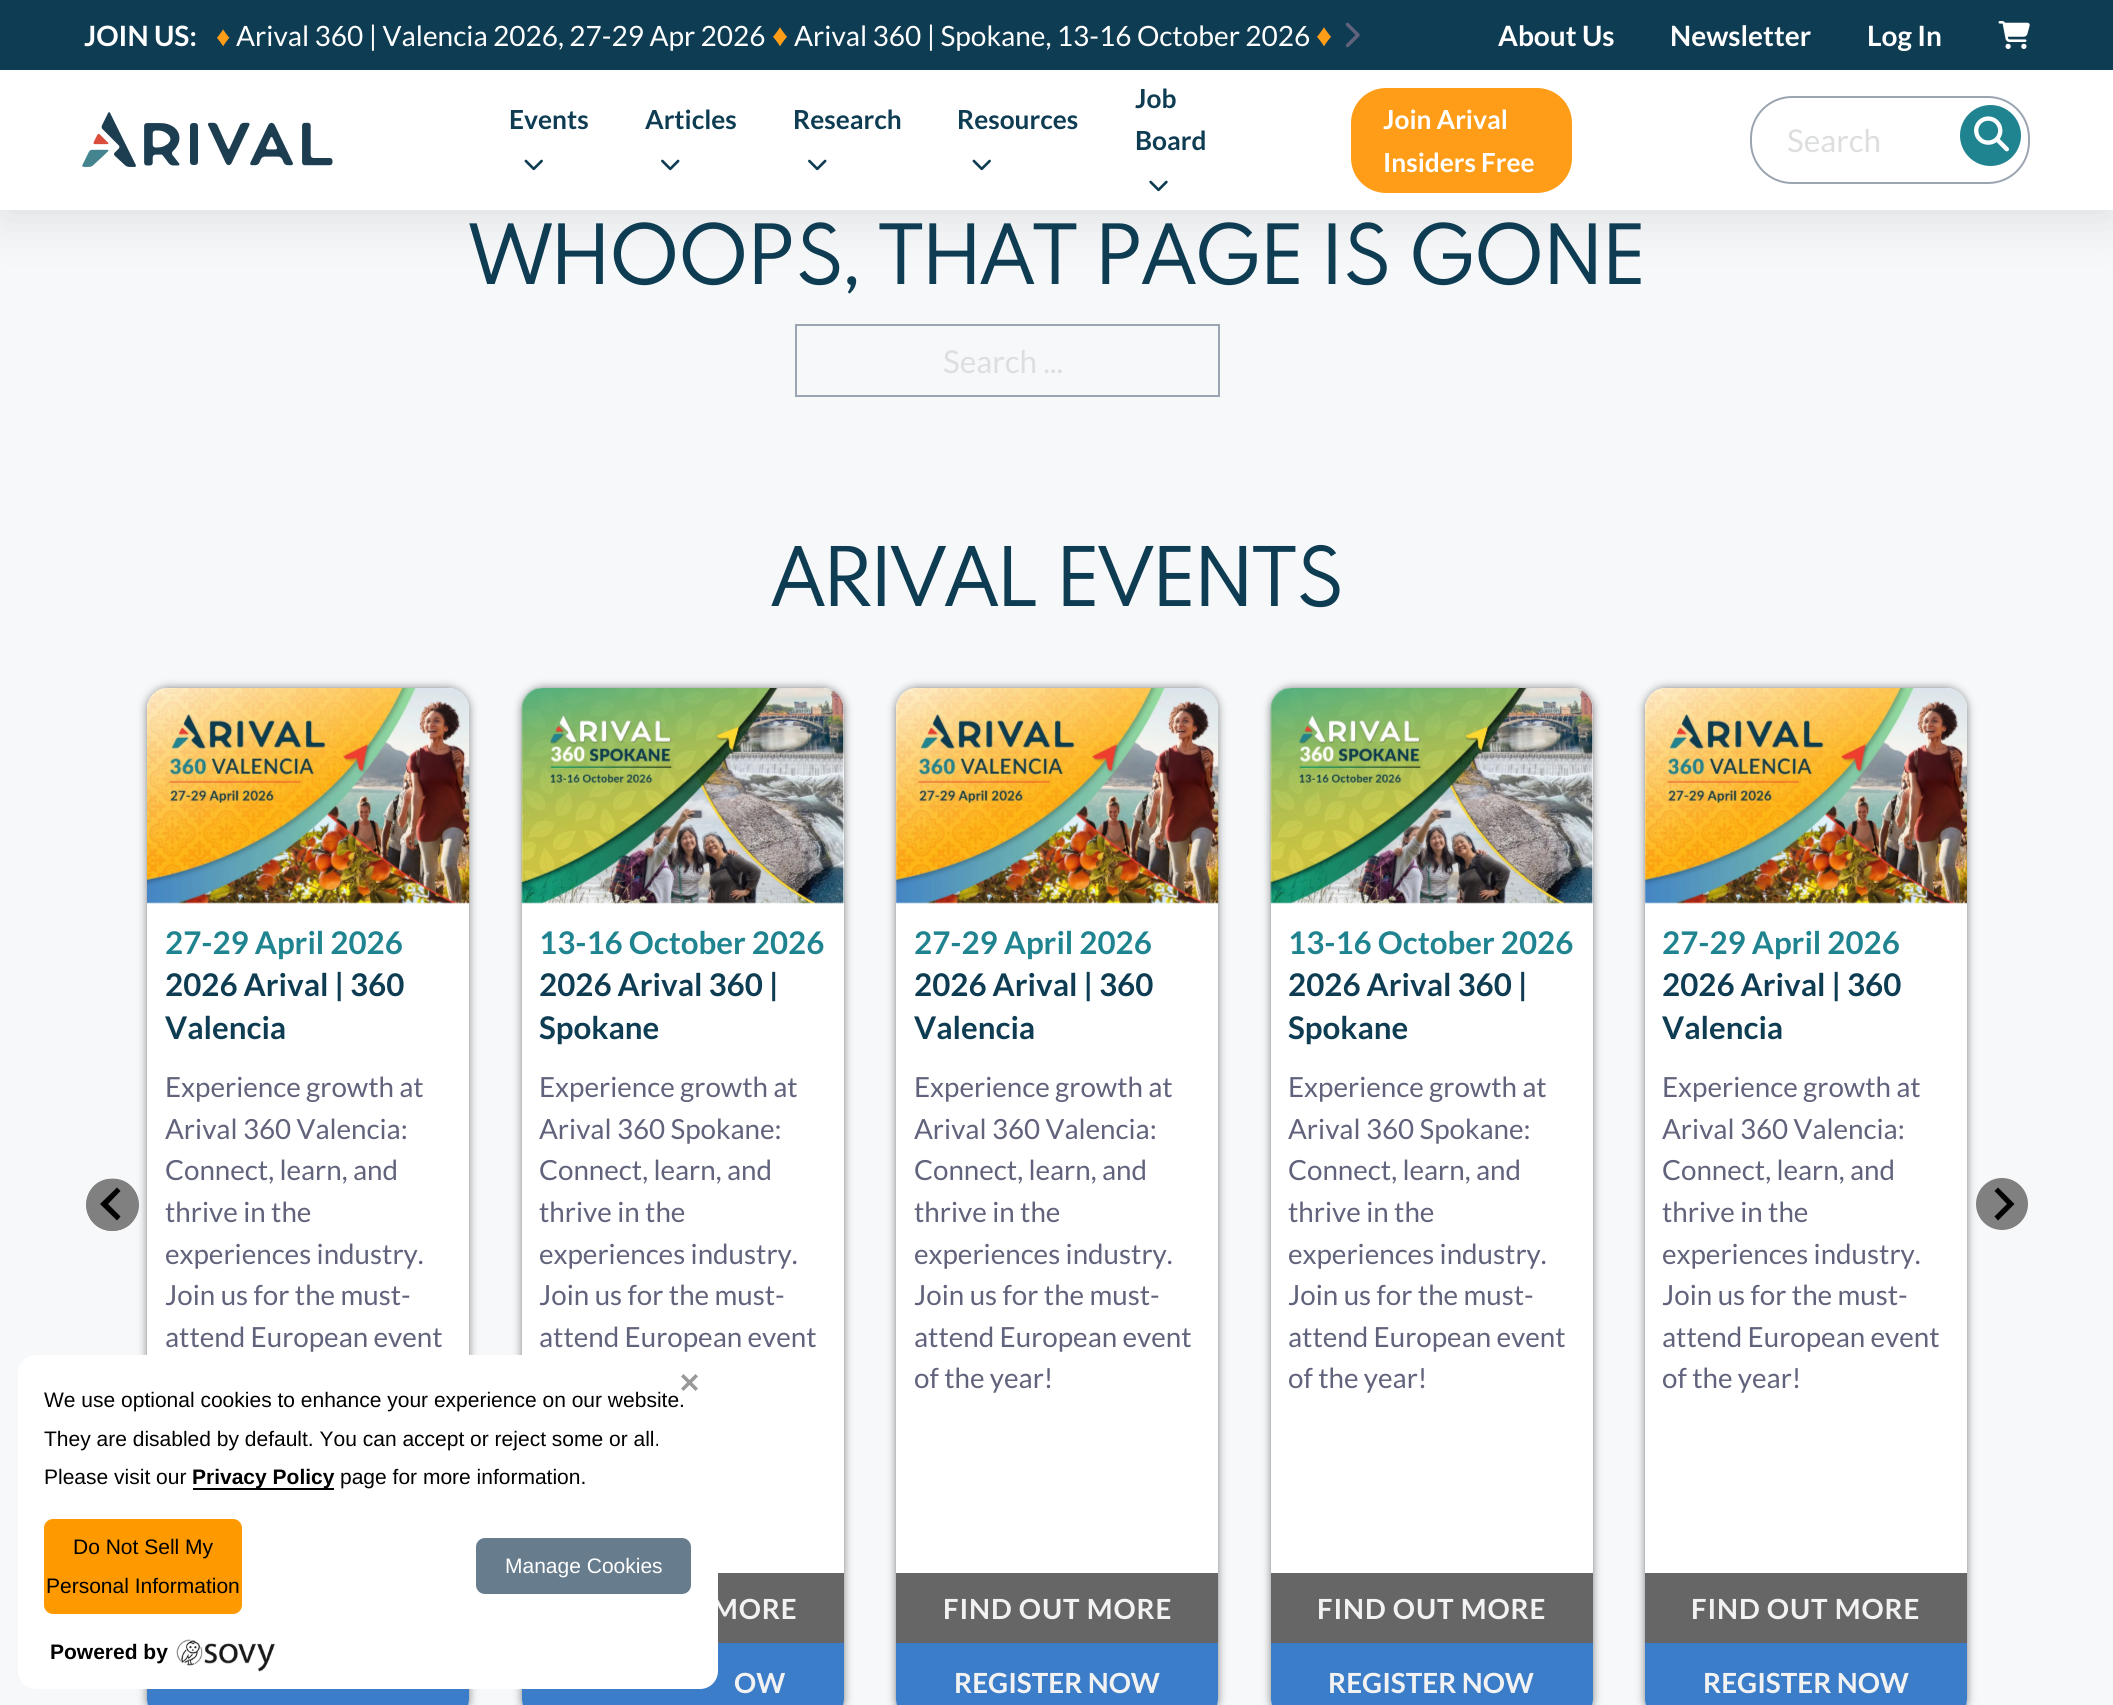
import math
import cairo


def write_spaced(ctx, x, y, s, letter, word):
	ctx.move_to(x, y)
	for ch in s:
		ctx.show_text(ch)
		ctx.rel_move_to(letter + word * (ch == ' '), 0)

def round_path(ctx, x, y, w, h, r):
	ctx.new_sub_path()
	for i, (u, v) in enumerate([(x + w - r, y + h - r), (x + r, y + h - r), (x + r, y + r), (x + w - r, y + r)]):
		ctx.arc(u, v, r, i * math.pi / 2, (i + 1) * math.pi / 2)
	ctx.close_path()

def blur_box(ctx, x, y, w, h, r, blur, alpha):
	ctx.push_group_with_content(cairo.CONTENT_ALPHA)
	ctx.set_operator(cairo.OPERATOR_SOURCE)
	for i in range(15, -16, -2):
		e = blur * i / 6
		if min(w, h) + 2 * e > 0:
			ctx.set_source_rgba(0, 0, 0, alpha * math.erfc((i - 1) / 8.5) / 2)
			round_path(ctx, x - e, y - e, w + 2 * e, h + 2 * e, max(0, min(r + e + blur * .6, min(w, h) / 2 + e)))
			ctx.fill()
	ctx.mask(ctx.pop_group())

def paste(ctx, path, x, y, w, h):
	ctx.save()
	ctx.set_source_surface(cairo.ImageSurface.create_from_png(path), x, y)
	ctx.rectangle(x, y, w, h)
	ctx.fill()
	ctx.restore()

def draw(ctx):
	ctx.set_source_rgb(0.961, 0.969, 0.98)
	ctx.paint()
	ctx.set_source_rgb(0, 0, 0)
	blur_box(ctx, 0, 9, 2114, 210, 0, 26, 0.1)
	ctx.set_source_rgb(0.055, 0.235, 0.322)
	ctx.rectangle(0, 0, 2113, 70)
	ctx.fill()
	ctx.select_font_face('Lato', cairo.FONT_SLANT_NORMAL, cairo.FONT_WEIGHT_BOLD)
	ctx.set_font_size(28)
	ctx.set_source_rgb(1, 1, 1)
	ctx.move_to(84, 46)
	ctx.show_text('JOIN US:')
	ctx.select_font_face('Liberation Sans')
	ctx.set_source_rgb(1, 0.616, 0.098)
	ctx.move_to(216, 46)
	ctx.show_text('♦')
	ctx.select_font_face('Lato')
	ctx.set_source_rgb(1, 1, 1)
	ctx.move_to(236, 46)
	ctx.show_text('Arival 360 | Valencia 2026, 27-29 Apr 2026')
	ctx.select_font_face('Liberation Sans')
	ctx.set_font_size(31.5)
	ctx.set_source_rgb(1, 0.616, 0.098)
	ctx.move_to(772, 46)
	ctx.show_text('♦')
	ctx.select_font_face('Lato')
	ctx.set_font_size(28)
	ctx.set_source_rgb(1, 1, 1)
	ctx.move_to(794, 46)
	ctx.show_text('Arival 360 | Spokane, 13-16 October 2026')
	ctx.select_font_face('Liberation Sans')
	ctx.set_font_size(31.5)
	ctx.set_source_rgb(1, 0.616, 0.098)
	ctx.move_to(1316, 46)
	ctx.show_text('♦')
	paste(ctx, 'media/1.png', 1345, 22, 15, 26)
	ctx.select_font_face('Lato', cairo.FONT_SLANT_NORMAL, cairo.FONT_WEIGHT_BOLD)
	ctx.set_font_size(28)
	ctx.set_source_rgb(1, 1, 1)
	for x, y, s in [
		(1498, 46, 'About Us'),
		(1670, 46, 'Newsletter'),
		(1867, 46, 'Log In'),
	]:
		ctx.move_to(x, y)
		ctx.show_text(s)
	paste(ctx, 'media/2.png', 1998, 21, 32, 28)
	ctx.rectangle(0, 70, 2113, 140)
	ctx.fill()
	paste(ctx, 'media/3.png', 82, 112, 251, 55)
	ctx.set_font_size(26.25)
	ctx.set_source_rgb(0.055, 0.235, 0.322)
	ctx.move_to(509, 129)
	ctx.show_text('Events')
	paste(ctx, 'media/4.png', 524, 159, 19, 12)
	ctx.move_to(645, 129)
	ctx.show_text('Articles')
	paste(ctx, 'media/5.png', 661, 159, 19, 12)
	ctx.move_to(793, 129)
	ctx.show_text('Research')
	paste(ctx, 'media/5.png', 808, 159, 19, 12)
	ctx.move_to(957, 129)
	ctx.show_text('Resources')
	paste(ctx, 'media/4.png', 972, 159, 19, 12)
	ctx.move_to(1135, 108)
	ctx.show_text('Job')
	ctx.move_to(1135, 150)
	ctx.show_text('Board')
	paste(ctx, 'media/6.png', 1149, 180, 19, 12)
	ctx.set_source_rgb(1, 0.616, 0.098)
	round_path(ctx, 1353, 90, 217, 101, 33)
	ctx.fill_preserve()
	ctx.set_line_width(4)
	ctx.stroke()
	ctx.set_source_rgb(1, 1, 1)
	ctx.move_to(1383, 129)
	ctx.show_text('Join Arival')
	ctx.move_to(1383, 172)
	ctx.show_text('Insiders Free')
	round_path(ctx, 1751, 97, 278, 86, 41)
	ctx.set_source_rgb(0.604, 0.647, 0.694)
	ctx.set_line_width(2)
	ctx.stroke()
	ctx.select_font_face('Lato')
	ctx.set_font_size(31.5)
	ctx.set_source_rgb(0.867, 0.871, 0.875)
	ctx.move_to(1787, 152)
	ctx.show_text('Search')
	ctx.set_source_rgb(0.125, 0.518, 0.565)
	ctx.new_path()
	ctx.arc(1990.5, 135.5, 30.5, 0, 2 * math.pi)
	ctx.fill()
	paste(ctx, 'media/7.png', 1974, 116, 35, 36)
	ctx.select_font_face('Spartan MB')
	ctx.set_font_size(73.5)
	ctx.set_source_rgb(0.055, 0.235, 0.322)
	ctx.move_to(470, 284)
	ctx.show_text('WHOOPS, THAT PAGE IS GONE')
	ctx.rectangle(796, 325, 423, 71)
	ctx.set_source_rgb(0.604, 0.647, 0.694)
	ctx.stroke()
	ctx.select_font_face('Lato')
	ctx.set_font_size(31.5)
	ctx.set_source_rgb(0.867, 0.871, 0.875)
	ctx.move_to(943, 373)
	ctx.show_text('Search ...')
	ctx.select_font_face('Spartan MB')
	ctx.set_font_size(72.75)
	ctx.set_source_rgb(0.055, 0.235, 0.322)
	ctx.move_to(772, 606)
	ctx.show_text('ARIVAL EVENTS')
	ctx.set_source_rgb(0.502, 0.502, 0.502)
	blur_box(ctx, 147, 688, 322, 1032, 21, 4.5, 1)
	ctx.set_source_rgb(1, 1, 1)
	round_path(ctx, 147, 688, 322, 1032, 21)
	ctx.fill()
	paste(ctx, 'media/8.png', 147, 688, 323, 216)
	ctx.select_font_face('Lato', cairo.FONT_SLANT_NORMAL, cairo.FONT_WEIGHT_BOLD)
	ctx.set_font_size(31.25)
	ctx.set_source_rgb(0.125, 0.518, 0.565)
	ctx.move_to(165, 954)
	ctx.show_text('27-29 April 2026')
	ctx.set_source_rgb(0.055, 0.235, 0.322)
	ctx.move_to(165, 996)
	ctx.show_text('2026 Arival | 360')
	ctx.move_to(165, 1039)
	ctx.show_text('Valencia')
	ctx.select_font_face('Lato')
	ctx.set_font_size(27.75)
	ctx.set_source_rgb(0.38, 0.388, 0.486)
	for x, y, s in [
		(165, 1097, 'Experience growth at'),
		(165, 1139, 'Arival 360 Valencia:'),
		(165, 1180, 'Connect, learn, and'),
		(165, 1222, 'thrive in the'),
		(165, 1264, 'experiences industry.'),
		(165, 1305, 'Join us for the must-'),
		(165, 1347, 'attend European event'),
	]:
		ctx.move_to(x, y)
		ctx.show_text(s)
	ctx.set_source_rgb(0.235, 0.49, 0.788)
	ctx.new_path()
	ctx.move_to(147, 1643)
	ctx.line_to(469, 1643)
	ctx.line_to(469, 1699)
	ctx.curve_to(469, 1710.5, 459.5, 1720, 448, 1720)
	ctx.line_to(168, 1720)
	ctx.curve_to(156.5, 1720, 147, 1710.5, 147, 1699)
	ctx.close_path()
	ctx.fill()
	ctx.set_source_rgb(0.502, 0.502, 0.502)
	blur_box(ctx, 522, 688, 322, 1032, 21, 4.5, 1)
	ctx.set_source_rgb(1, 1, 1)
	round_path(ctx, 522, 688, 322, 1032, 21)
	ctx.fill()
	paste(ctx, 'media/9.png', 521, 688, 324, 216)
	ctx.select_font_face('Lato', cairo.FONT_SLANT_NORMAL, cairo.FONT_WEIGHT_BOLD)
	ctx.set_font_size(31.25)
	ctx.set_source_rgb(0.125, 0.518, 0.565)
	ctx.move_to(539, 954)
	ctx.show_text('13-16 October 2026')
	ctx.set_source_rgb(0.055, 0.235, 0.322)
	ctx.move_to(539, 996)
	ctx.show_text('2026 Arival 360 |')
	ctx.move_to(539, 1039)
	ctx.show_text('Spokane')
	ctx.select_font_face('Lato')
	ctx.set_font_size(27.75)
	ctx.set_source_rgb(0.38, 0.388, 0.486)
	for x, y, s in [
		(539, 1097, 'Experience growth at'),
		(539, 1139, 'Arival 360 Spokane:'),
		(539, 1180, 'Connect, learn, and'),
		(539, 1222, 'thrive in the'),
		(539, 1264, 'experiences industry.'),
		(539, 1305, 'Join us for the must-'),
		(539, 1347, 'attend European event'),
	]:
		ctx.move_to(x, y)
		ctx.show_text(s)
	ctx.set_source_rgb(0.4, 0.4, 0.4)
	ctx.rectangle(718, 1573, 126, 70)
	ctx.fill()
	ctx.select_font_face('Lato', cairo.FONT_SLANT_NORMAL, cairo.FONT_WEIGHT_BOLD)
	ctx.set_source_rgb(0.949, 0.949, 0.949)
	write_spaced(ctx, 712, 1619, 'MORE', 0.9, 0)
	ctx.set_source_rgb(0.235, 0.49, 0.788)
	ctx.new_path()
	ctx.move_to(522, 1643)
	ctx.line_to(844, 1643)
	ctx.line_to(844, 1699)
	ctx.curve_to(844, 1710.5, 834.5, 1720, 823, 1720)
	ctx.line_to(543, 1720)
	ctx.curve_to(531.5, 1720, 522, 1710.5, 522, 1699)
	ctx.close_path()
	ctx.fill()
	ctx.set_source_rgb(0.949, 0.949, 0.949)
	ctx.move_to(734, 1693)
	ctx.show_text('OW')
	ctx.set_source_rgb(0.502, 0.502, 0.502)
	blur_box(ctx, 896, 688, 322, 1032, 21, 4.5, 1)
	ctx.set_source_rgb(1, 1, 1)
	round_path(ctx, 896, 688, 322, 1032, 21)
	ctx.fill()
	paste(ctx, 'media/10.png', 896, 688, 323, 216)
	ctx.set_font_size(31.25)
	ctx.set_source_rgb(0.125, 0.518, 0.565)
	ctx.move_to(914, 954)
	ctx.show_text('27-29 April 2026')
	ctx.set_source_rgb(0.055, 0.235, 0.322)
	ctx.move_to(914, 996)
	ctx.show_text('2026 Arival | 360')
	ctx.move_to(914, 1039)
	ctx.show_text('Valencia')
	ctx.select_font_face('Lato')
	ctx.set_font_size(27.75)
	ctx.set_source_rgb(0.38, 0.388, 0.486)
	for x, y, s in [
		(914, 1097, 'Experience growth at'),
		(914, 1139, 'Arival 360 Valencia:'),
		(914, 1180, 'Connect, learn, and'),
		(914, 1222, 'thrive in the'),
		(914, 1264, 'experiences industry.'),
		(914, 1305, 'Join us for the must-'),
		(914, 1347, 'attend European event'),
		(914, 1388, 'of the year!'),
	]:
		ctx.move_to(x, y)
		ctx.show_text(s)
	ctx.set_source_rgb(0.4, 0.4, 0.4)
	ctx.rectangle(896, 1573, 322, 70)
	ctx.fill()
	ctx.select_font_face('Lato', cairo.FONT_SLANT_NORMAL, cairo.FONT_WEIGHT_BOLD)
	ctx.set_source_rgb(0.949, 0.949, 0.949)
	write_spaced(ctx, 943, 1619, 'FIND OUT MORE', 0.9, 0)
	ctx.set_source_rgb(0.235, 0.49, 0.788)
	ctx.new_path()
	ctx.move_to(896, 1643)
	ctx.line_to(1218, 1643)
	ctx.line_to(1218, 1699)
	ctx.curve_to(1218, 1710.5, 1208.5, 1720, 1197, 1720)
	ctx.line_to(917, 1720)
	ctx.curve_to(905.5, 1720, 896, 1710.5, 896, 1699)
	ctx.close_path()
	ctx.fill()
	ctx.set_source_rgb(0.949, 0.949, 0.949)
	ctx.move_to(954, 1693)
	ctx.show_text('REGISTER NOW')
	ctx.set_source_rgb(0.502, 0.502, 0.502)
	blur_box(ctx, 1271, 688, 322, 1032, 21, 4.5, 1)
	ctx.set_source_rgb(1, 1, 1)
	round_path(ctx, 1271, 688, 322, 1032, 21)
	ctx.fill()
	paste(ctx, 'media/11.png', 1270, 688, 324, 216)
	ctx.set_font_size(31.25)
	ctx.set_source_rgb(0.125, 0.518, 0.565)
	ctx.move_to(1288, 954)
	ctx.show_text('13-16 October 2026')
	ctx.set_source_rgb(0.055, 0.235, 0.322)
	ctx.move_to(1288, 996)
	ctx.show_text('2026 Arival 360 |')
	ctx.move_to(1288, 1039)
	ctx.show_text('Spokane')
	ctx.select_font_face('Lato')
	ctx.set_font_size(27.75)
	ctx.set_source_rgb(0.38, 0.388, 0.486)
	for x, y, s in [
		(1288, 1097, 'Experience growth at'),
		(1288, 1139, 'Arival 360 Spokane:'),
		(1288, 1180, 'Connect, learn, and'),
		(1288, 1222, 'thrive in the'),
		(1288, 1264, 'experiences industry.'),
		(1288, 1305, 'Join us for the must-'),
		(1288, 1347, 'attend European event'),
		(1288, 1388, 'of the year!'),
	]:
		ctx.move_to(x, y)
		ctx.show_text(s)
	ctx.set_source_rgb(0.4, 0.4, 0.4)
	ctx.rectangle(1271, 1573, 322, 70)
	ctx.fill()
	ctx.select_font_face('Lato', cairo.FONT_SLANT_NORMAL, cairo.FONT_WEIGHT_BOLD)
	ctx.set_source_rgb(0.949, 0.949, 0.949)
	write_spaced(ctx, 1317, 1619, 'FIND OUT MORE', 0.9, 0)
	ctx.set_source_rgb(0.235, 0.49, 0.788)
	ctx.new_path()
	ctx.move_to(1271, 1643)
	ctx.line_to(1593, 1643)
	ctx.line_to(1593, 1699)
	ctx.curve_to(1593, 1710.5, 1583.5, 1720, 1572, 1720)
	ctx.line_to(1292, 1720)
	ctx.curve_to(1280.5, 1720, 1271, 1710.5, 1271, 1699)
	ctx.close_path()
	ctx.fill()
	ctx.set_source_rgb(0.949, 0.949, 0.949)
	ctx.move_to(1328, 1693)
	ctx.show_text('REGISTER NOW')
	ctx.set_source_rgb(0.502, 0.502, 0.502)
	blur_box(ctx, 1645, 688, 322, 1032, 21, 4.5, 1)
	ctx.set_source_rgb(1, 1, 1)
	round_path(ctx, 1645, 688, 322, 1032, 21)
	ctx.fill()
	paste(ctx, 'media/12.png', 1645, 688, 322, 216)
	ctx.set_font_size(31.25)
	ctx.set_source_rgb(0.125, 0.518, 0.565)
	ctx.move_to(1662, 954)
	ctx.show_text('27-29 April 2026')
	ctx.set_source_rgb(0.055, 0.235, 0.322)
	ctx.move_to(1662, 996)
	ctx.show_text('2026 Arival | 360')
	ctx.move_to(1662, 1039)
	ctx.show_text('Valencia')
	ctx.select_font_face('Lato')
	ctx.set_font_size(27.75)
	ctx.set_source_rgb(0.38, 0.388, 0.486)
	for x, y, s in [
		(1662, 1097, 'Experience growth at'),
		(1662, 1139, 'Arival 360 Valencia:'),
		(1662, 1180, 'Connect, learn, and'),
		(1662, 1222, 'thrive in the'),
		(1662, 1264, 'experiences industry.'),
		(1662, 1305, 'Join us for the must-'),
		(1662, 1347, 'attend European event'),
		(1662, 1388, 'of the year!'),
	]:
		ctx.move_to(x, y)
		ctx.show_text(s)
	ctx.set_source_rgb(0.4, 0.4, 0.4)
	ctx.rectangle(1645, 1573, 322, 70)
	ctx.fill()
	ctx.select_font_face('Lato', cairo.FONT_SLANT_NORMAL, cairo.FONT_WEIGHT_BOLD)
	ctx.set_source_rgb(0.949, 0.949, 0.949)
	write_spaced(ctx, 1691, 1619, 'FIND OUT MORE', 0.9, 0)
	ctx.set_source_rgb(0.235, 0.49, 0.788)
	ctx.new_path()
	ctx.move_to(1645, 1643)
	ctx.line_to(1967, 1643)
	ctx.line_to(1967, 1699)
	ctx.curve_to(1967, 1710.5, 1957.5, 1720, 1946, 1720)
	ctx.line_to(1666, 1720)
	ctx.curve_to(1654.5, 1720, 1645, 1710.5, 1645, 1699)
	ctx.close_path()
	ctx.fill()
	ctx.set_source_rgb(0.949, 0.949, 0.949)
	ctx.move_to(1703, 1693)
	ctx.show_text('REGISTER NOW')
	ctx.set_source_rgb(0.502, 0.502, 0.502)
	ctx.new_path()
	ctx.move_to(112, 1179)
	ctx.curve_to(98, 1179, 86, 1190, 86, 1205)
	ctx.curve_to(86, 1219, 98, 1231, 112, 1231)
	ctx.curve_to(127, 1231, 139, 1219, 139, 1205)
	ctx.curve_to(139, 1190, 127, 1179, 112, 1179)
	ctx.close_path()
	ctx.fill()
	ctx.new_path()
	ctx.move_to(112.5, 1183)
	ctx.curve_to(83.5, 1183, 83.5, 1226.5, 112.5, 1226.5)
	ctx.curve_to(141, 1226.5, 141, 1183, 112.5, 1183)
	ctx.close_path()
	ctx.set_line_width(8.8)
	ctx.stroke()
	ctx.set_source_rgb(0, 0, 0)
	ctx.new_path()
	ctx.move_to(117, 1187.5)
	ctx.line_to(120.5, 1191)
	ctx.line_to(108, 1204)
	ctx.line_to(120.5, 1216.5)
	ctx.line_to(117, 1220.5)
	ctx.line_to(100, 1204)
	ctx.close_path()
	ctx.fill()
	ctx.set_source_rgb(0.502, 0.502, 0.502)
	ctx.arc(2002, 1204, 21.5, 0, 2 * math.pi)
	ctx.fill_preserve()
	ctx.set_line_width(9)
	ctx.stroke()
	ctx.set_source_rgb(0, 0, 0)
	ctx.new_path()
	ctx.move_to(1998, 1187.5)
	ctx.line_to(1994.5, 1191)
	ctx.line_to(2007, 1204)
	ctx.line_to(1994.5, 1216.5)
	ctx.line_to(1998, 1220.5)
	ctx.line_to(2014.5, 1204)
	ctx.close_path()
	ctx.fill()
	ctx.set_source_rgb(1, 1, 1)
	round_path(ctx, 18, 1355, 700, 334, 18)
	ctx.fill()
	ctx.set_source_rgb(0.6, 0.6, 0.6)
	ctx.new_path()
	ctx.move_to(695.5, 1374)
	ctx.line_to(698, 1376.5)
	ctx.line_to(683.5, 1391)
	ctx.line_to(681, 1388.5)
	ctx.close_path()
	ctx.fill()
	ctx.new_path()
	ctx.move_to(681, 1376.5)
	ctx.line_to(683.5, 1374)
	ctx.line_to(698, 1388.5)
	ctx.line_to(695.5, 1391)
	ctx.close_path()
	ctx.fill()
	ctx.select_font_face('Liberation Sans')
	ctx.set_font_size(21)
	ctx.set_source_rgb(0, 0, 0)
	for x, y, s in [
		(44, 1407, 'We use optional cookies to enhance your experience on our website.'),
		(44, 1446, 'They are disabled by default. You can accept or reject some or all.'),
		(44, 1484, 'Please visit our'),
	]:
		ctx.move_to(x, y)
		ctx.show_text(s)
	ctx.rectangle(193, 1488, 141, 2)
	ctx.fill()
	ctx.select_font_face('Liberation Sans', cairo.FONT_SLANT_NORMAL, cairo.FONT_WEIGHT_BOLD)
	ctx.move_to(192, 1484)
	ctx.show_text('Privacy Policy')
	ctx.select_font_face('Liberation Sans')
	ctx.move_to(340, 1484)
	ctx.show_text('page for more information.')
	ctx.set_source_rgb(1, 0.6, 0)
	round_path(ctx, 44, 1519, 198, 95, 9)
	ctx.fill()
	ctx.set_source_rgb(0, 0, 0)
	ctx.move_to(73, 1554)
	ctx.show_text('Do Not Sell My')
	ctx.move_to(46, 1593)
	ctx.show_text('Personal Information')
	ctx.set_source_rgb(0.404, 0.486, 0.553)
	round_path(ctx, 476, 1538, 215, 56, 9)
	ctx.fill()
	ctx.set_source_rgb(1, 1, 1)
	ctx.move_to(505, 1573)
	ctx.show_text('Manage Cookies')
	ctx.select_font_face('Liberation Sans', cairo.FONT_SLANT_NORMAL, cairo.FONT_WEIGHT_BOLD)
	ctx.set_source_rgb(0, 0, 0)
	ctx.move_to(50, 1659)
	ctx.show_text('Powered by')
	paste(ctx, 'media/13.png', 176, 1639, 99, 33)


surface = cairo.ImageSurface(cairo.FORMAT_RGB24, 2113, 1705)
ctx = cairo.Context(surface)
options = cairo.FontOptions()
options.set_hint_metrics(cairo.HINT_METRICS_OFF)
options.set_hint_style(cairo.HINT_STYLE_NONE)
ctx.set_font_options(options)
ctx.set_miter_limit(4)
draw(ctx)
surface.write_to_png('image.png')
